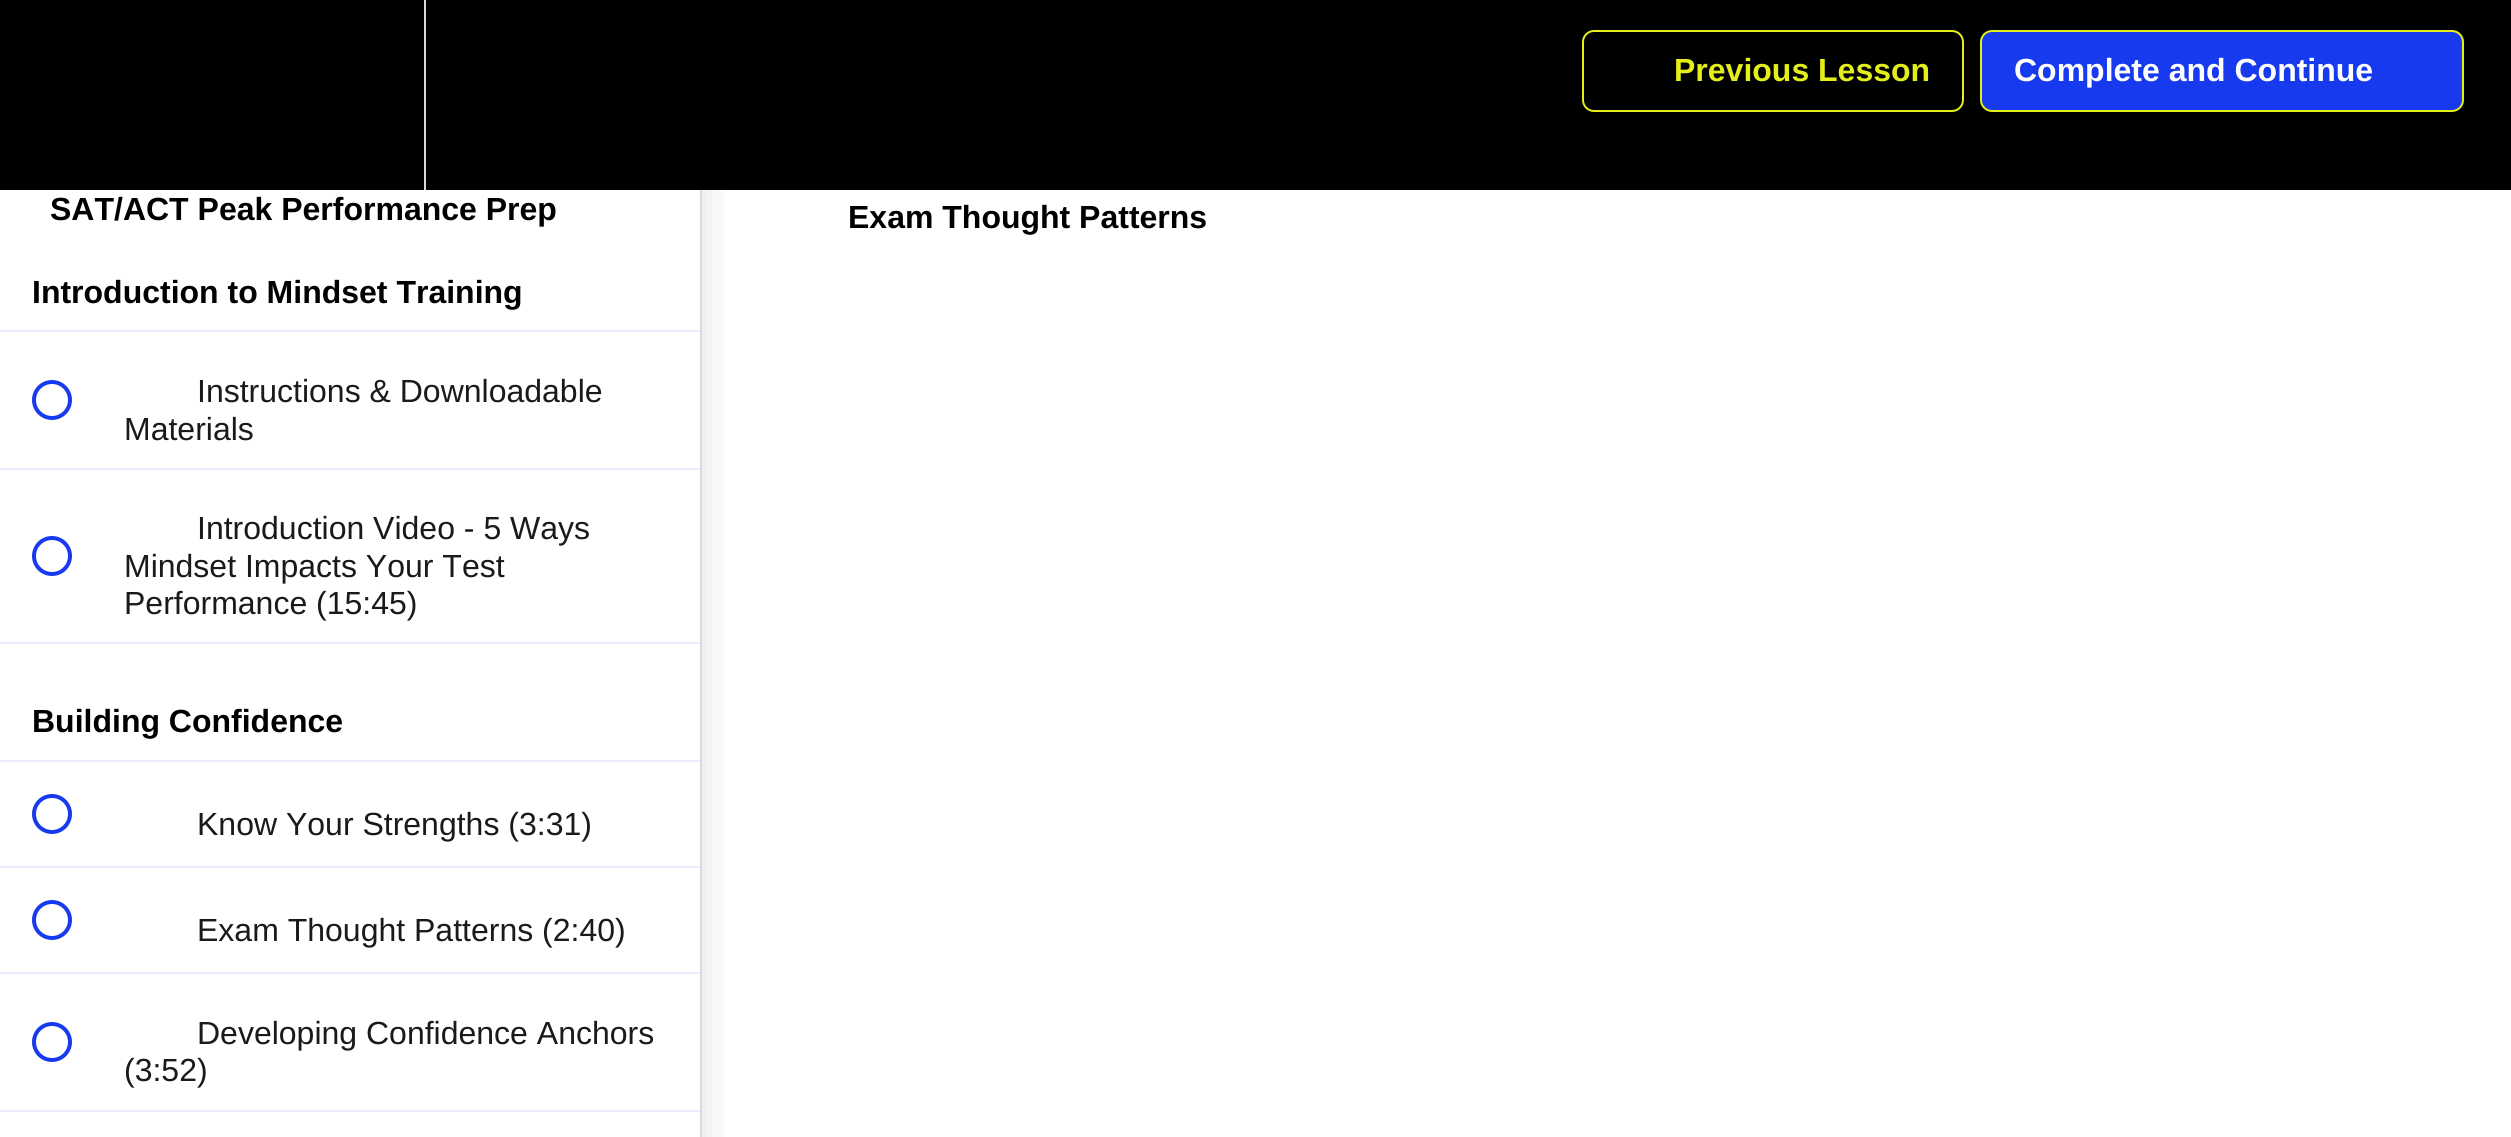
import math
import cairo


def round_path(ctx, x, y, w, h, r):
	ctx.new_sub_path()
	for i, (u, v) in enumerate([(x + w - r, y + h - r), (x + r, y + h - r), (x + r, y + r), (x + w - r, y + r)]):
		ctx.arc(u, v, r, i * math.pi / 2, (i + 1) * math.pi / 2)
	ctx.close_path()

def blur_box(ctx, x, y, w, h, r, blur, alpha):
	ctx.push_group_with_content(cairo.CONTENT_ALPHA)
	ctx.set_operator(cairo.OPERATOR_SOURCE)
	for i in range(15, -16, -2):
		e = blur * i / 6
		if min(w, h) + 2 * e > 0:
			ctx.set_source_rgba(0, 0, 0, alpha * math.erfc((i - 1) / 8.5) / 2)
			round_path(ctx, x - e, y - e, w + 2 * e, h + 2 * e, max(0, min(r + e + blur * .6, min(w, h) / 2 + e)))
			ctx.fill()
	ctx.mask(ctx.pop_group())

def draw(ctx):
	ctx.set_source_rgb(1, 1, 1)
	ctx.paint()
	ctx.save()
	ctx.rectangle(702, 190, 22, 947)
	ctx.clip()
	ctx.set_source_rgb(0.125, 0.153, 0.176)
	blur_box(ctx, 0, 154, 702, 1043, 0, 20, 0.15)
	ctx.restore()
	ctx.set_source_rgb(0, 0, 0)
	ctx.rectangle(0, 0, 2511, 190)
	ctx.fill()
	ctx.set_source_rgb(0.843, 0.855, 0.859)
	ctx.rectangle(424, 0, 2, 190)
	ctx.fill()
	round_path(ctx, 1583, 31, 380, 80, 11)
	ctx.set_source_rgb(0.894, 0.933, 0.094)
	ctx.stroke()
	ctx.select_font_face('Liberation Sans', cairo.FONT_SLANT_NORMAL, cairo.FONT_WEIGHT_BOLD)
	ctx.set_font_size(32)
	ctx.move_to(1674, 81)
	ctx.show_text('Previous Lesson')
	ctx.set_source_rgb(0.094, 0.227, 0.933)
	round_path(ctx, 1981, 31, 482, 80, 11)
	ctx.fill_preserve()
	ctx.set_source_rgb(0.894, 0.933, 0.094)
	ctx.stroke()
	ctx.set_source_rgb(1, 1, 1)
	ctx.move_to(2014, 81)
	ctx.show_text('Complete and Continue')
	ctx.set_source_rgb(0.843, 0.855, 0.859)
	ctx.rectangle(700, 190, 2, 947)
	ctx.fill()
	ctx.set_source_rgb(0, 0, 0)
	ctx.move_to(50, 220)
	ctx.show_text('SAT/ACT Peak Performance Prep')
	ctx.set_source_rgb(0.91, 0.922, 0.992)
	ctx.rectangle(0, 330, 700, 2)
	ctx.fill()
	ctx.set_source_rgb(0, 0, 0)
	ctx.move_to(32, 303)
	ctx.show_text('Introduction to Mindset Training')
	ctx.set_source_rgb(0.91, 0.922, 0.992)
	ctx.rectangle(0, 468, 700, 2)
	ctx.fill()
	ctx.arc(52, 400, 18, 0, 2 * math.pi)
	ctx.set_source_rgb(0.094, 0.227, 0.933)
	ctx.set_line_width(4)
	ctx.stroke()
	ctx.select_font_face('Liberation Sans')
	ctx.set_source_rgb(0.102, 0.102, 0.102)
	ctx.move_to(197, 402)
	ctx.show_text('Instructions & Downloadable')
	ctx.move_to(124, 440)
	ctx.show_text('Materials')
	ctx.set_source_rgb(0.91, 0.922, 0.992)
	ctx.rectangle(0, 642, 700, 2)
	ctx.fill()
	ctx.arc(52, 556, 18, 0, 2 * math.pi)
	ctx.set_source_rgb(0.094, 0.227, 0.933)
	ctx.stroke()
	ctx.set_source_rgb(0.102, 0.102, 0.102)
	for x, y, s in [
		(197, 539, 'Introduction Video - 5 Ways'),
		(124, 577, 'Mindset Impacts Your Test'),
		(124, 614, 'Performance (15:45)'),
	]:
		ctx.move_to(x, y)
		ctx.show_text(s)
	ctx.set_source_rgb(0.91, 0.922, 0.992)
	ctx.rectangle(0, 760, 700, 2)
	ctx.fill()
	ctx.select_font_face('Liberation Sans', cairo.FONT_SLANT_NORMAL, cairo.FONT_WEIGHT_BOLD)
	ctx.set_source_rgb(0, 0, 0)
	ctx.move_to(32, 732)
	ctx.show_text('Building Confidence')
	ctx.set_source_rgb(0.91, 0.922, 0.992)
	ctx.rectangle(0, 866, 700, 2)
	ctx.fill()
	ctx.arc(52, 814, 18, 0, 2 * math.pi)
	ctx.set_source_rgb(0.094, 0.227, 0.933)
	ctx.stroke()
	ctx.select_font_face('Liberation Sans')
	ctx.set_source_rgb(0.102, 0.102, 0.102)
	ctx.move_to(197, 835)
	ctx.show_text('Know Your Strengths (3:31)')
	ctx.set_source_rgb(0.91, 0.922, 0.992)
	ctx.rectangle(0, 972, 700, 2)
	ctx.fill()
	ctx.arc(52, 920, 18, 0, 2 * math.pi)
	ctx.set_source_rgb(0.094, 0.227, 0.933)
	ctx.stroke()
	ctx.set_source_rgb(0.102, 0.102, 0.102)
	ctx.move_to(197, 941)
	ctx.show_text('Exam Thought Patterns (2:40)')
	ctx.set_source_rgb(0.91, 0.922, 0.992)
	ctx.rectangle(0, 1110, 700, 2)
	ctx.fill()
	ctx.arc(52, 1042, 18, 0, 2 * math.pi)
	ctx.set_source_rgb(0.094, 0.227, 0.933)
	ctx.stroke()
	ctx.set_source_rgb(0.102, 0.102, 0.102)
	ctx.move_to(197, 1044)
	ctx.show_text('Developing Confidence Anchors')
	ctx.move_to(124, 1081)
	ctx.show_text('(3:52)')
	ctx.select_font_face('Liberation Sans', cairo.FONT_SLANT_NORMAL, cairo.FONT_WEIGHT_BOLD)
	ctx.set_source_rgb(0, 0, 0)
	ctx.move_to(848, 228)
	ctx.show_text('Exam Thought Patterns')


surface = cairo.ImageSurface(cairo.FORMAT_RGB24, 2511, 1137)
ctx = cairo.Context(surface)
options = cairo.FontOptions()
options.set_hint_metrics(cairo.HINT_METRICS_OFF)
options.set_hint_style(cairo.HINT_STYLE_NONE)
ctx.set_font_options(options)
ctx.set_miter_limit(4)
draw(ctx)
surface.write_to_png('image.png')
